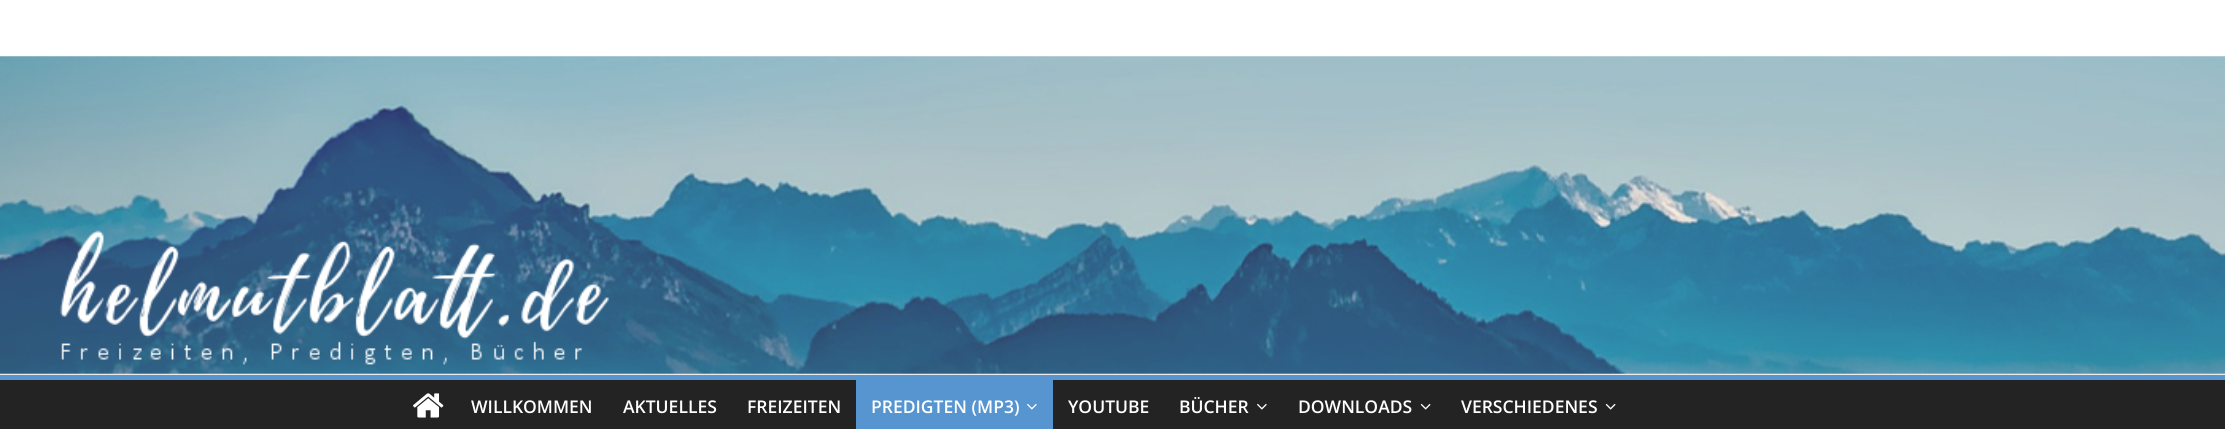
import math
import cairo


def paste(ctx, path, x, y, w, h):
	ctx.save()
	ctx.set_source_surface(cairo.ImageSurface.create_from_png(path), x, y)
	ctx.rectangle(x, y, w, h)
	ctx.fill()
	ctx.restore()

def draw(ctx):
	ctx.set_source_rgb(1, 1, 1)
	ctx.paint()
	paste(ctx, 'media/1.png', 0, 56, 2225, 318)
	ctx.set_source_rgb(0.918, 0.918, 0.918)
	ctx.rectangle(0, 374, 2225, 1)
	ctx.fill()
	ctx.set_source_rgb(0.137, 0.137, 0.137)
	ctx.rectangle(0, 380, 2225, 49)
	ctx.fill()
	ctx.set_source_rgb(0.337, 0.584, 0.816)
	ctx.rectangle(0, 375, 2225, 5)
	ctx.fill()
	paste(ctx, 'media/2.png', 413, 393, 31, 25)
	ctx.select_font_face('Open Sans SemiBold')
	ctx.set_font_size(17.5)
	ctx.set_source_rgb(1, 1, 1)
	for x, y, s in [
		(471, 413, 'WILLKOMMEN'),
		(623, 413, 'AKTUELLES'),
		(747, 413, 'FREIZEITEN'),
	]:
		ctx.move_to(x, y)
		ctx.show_text(s)
	ctx.set_source_rgb(0.337, 0.584, 0.816)
	ctx.rectangle(856, 380, 197, 49)
	ctx.fill()
	ctx.set_source_rgb(1, 1, 1)
	ctx.move_to(871, 413)
	ctx.show_text('PREDIGTEN (MP3)')
	paste(ctx, 'media/3.png', 1027, 403, 10, 7)
	ctx.move_to(1068, 413)
	ctx.show_text('YOUTUBE')
	ctx.move_to(1179, 413)
	ctx.show_text('BÜCHER')
	paste(ctx, 'media/4.png', 1257, 403, 10, 7)
	ctx.move_to(1298, 413)
	ctx.show_text('DOWNLOADS')
	paste(ctx, 'media/5.png', 1420, 403, 11, 7)
	ctx.move_to(1461, 413)
	ctx.show_text('VERSCHIEDENES')
	paste(ctx, 'media/5.png', 1605, 403, 11, 7)


surface = cairo.ImageSurface(cairo.FORMAT_RGB24, 2225, 429)
ctx = cairo.Context(surface)
options = cairo.FontOptions()
options.set_hint_metrics(cairo.HINT_METRICS_OFF)
options.set_hint_style(cairo.HINT_STYLE_NONE)
ctx.set_font_options(options)
ctx.set_miter_limit(4)
draw(ctx)
surface.write_to_png('image.png')
